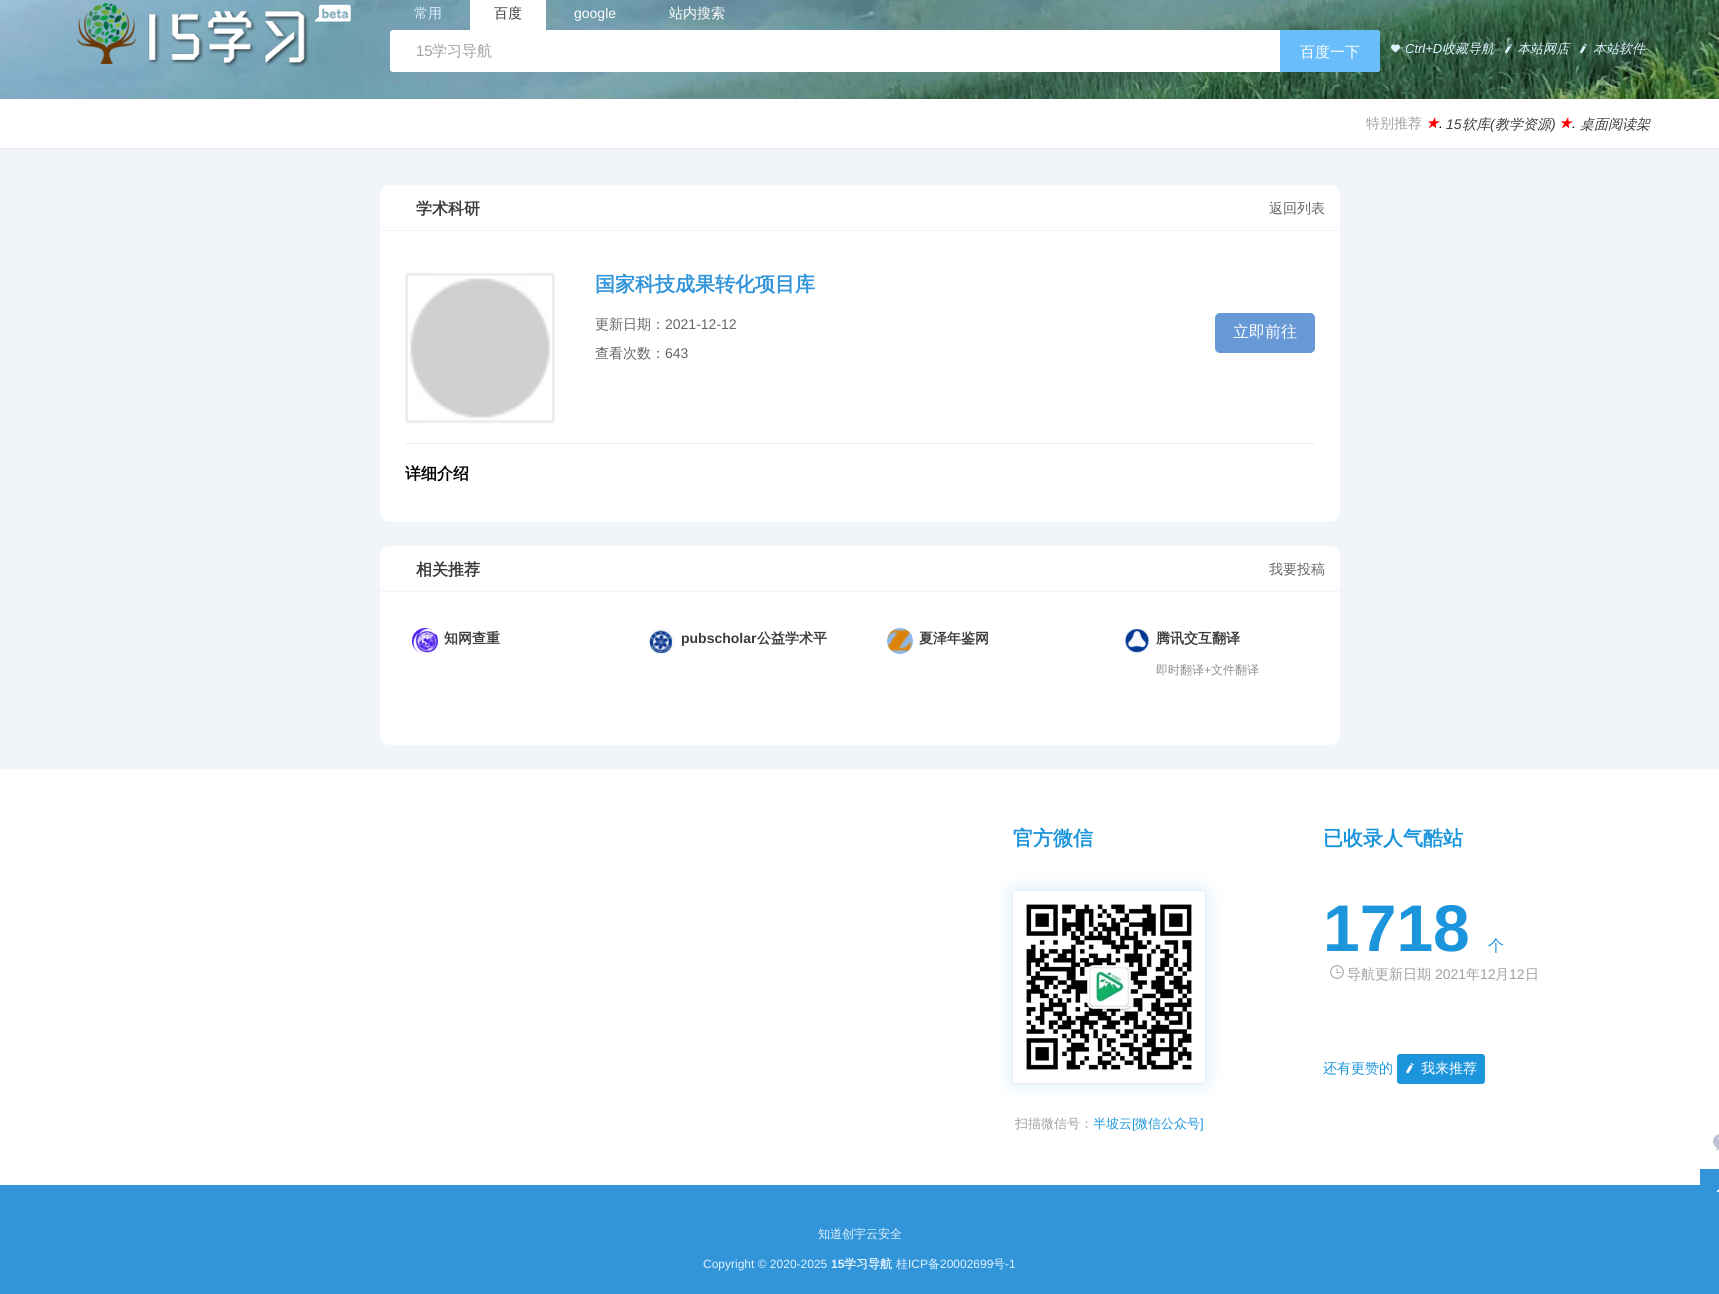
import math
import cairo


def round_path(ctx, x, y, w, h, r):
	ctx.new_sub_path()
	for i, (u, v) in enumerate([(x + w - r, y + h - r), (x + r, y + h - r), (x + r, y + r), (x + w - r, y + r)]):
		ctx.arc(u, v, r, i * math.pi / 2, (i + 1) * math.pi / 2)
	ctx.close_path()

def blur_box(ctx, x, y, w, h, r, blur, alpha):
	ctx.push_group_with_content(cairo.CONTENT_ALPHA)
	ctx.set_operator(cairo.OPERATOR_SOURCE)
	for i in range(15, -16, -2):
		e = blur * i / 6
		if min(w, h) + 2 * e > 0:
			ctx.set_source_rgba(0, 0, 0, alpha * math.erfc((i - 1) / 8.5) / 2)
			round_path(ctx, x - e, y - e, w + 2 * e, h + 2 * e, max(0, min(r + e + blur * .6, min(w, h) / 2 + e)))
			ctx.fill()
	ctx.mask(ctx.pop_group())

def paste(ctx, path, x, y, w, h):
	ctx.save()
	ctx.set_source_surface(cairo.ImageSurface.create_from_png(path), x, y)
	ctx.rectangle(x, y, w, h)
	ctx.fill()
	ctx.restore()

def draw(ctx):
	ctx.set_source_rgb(0.945, 0.957, 0.976)
	ctx.paint()
	paste(ctx, 'media/1.png', 0, 0, 1719, 99)
	paste(ctx, 'media/2.png', 77, 3, 274, 64)
	ctx.select_font_face('WenQuanYi Zen Hei Medium')
	ctx.set_font_size(14)
	ctx.set_source_rgb(0.851, 0.937, 1)
	ctx.move_to(414, 18)
	ctx.show_text('常用')
	ctx.set_source_rgb(1, 1, 1)
	ctx.rectangle(470, 0, 76, 30)
	ctx.fill()
	ctx.set_source_rgb(0.235, 0.235, 0.235)
	ctx.move_to(494, 18)
	ctx.show_text('百度')
	ctx.select_font_face('Liberation Sans')
	ctx.set_source_rgb(1, 1, 1)
	ctx.move_to(574, 18)
	ctx.show_text('google')
	ctx.select_font_face('WenQuanYi Zen Hei Medium')
	ctx.move_to(669, 18)
	ctx.show_text('站内搜索')
	round_path(ctx, 390, 30, 990, 42, 3)
	ctx.fill()
	ctx.select_font_face('Liberation Sans')
	ctx.set_font_size(15)
	ctx.set_source_rgb(0.627, 0.627, 0.627)
	ctx.move_to(416, 56)
	ctx.show_text('15')
	ctx.select_font_face('WenQuanYi Zen Hei Medium')
	ctx.move_to(432, 56)
	ctx.show_text('学习导航')
	ctx.set_source_rgb(0.412, 0.741, 0.984)
	ctx.new_path()
	ctx.move_to(1280, 30)
	ctx.line_to(1377, 30)
	ctx.curve_to(1378.5, 30, 1380, 31.5, 1380, 33)
	ctx.line_to(1380, 69)
	ctx.curve_to(1380, 70.5, 1378.5, 72, 1377, 72)
	ctx.line_to(1280, 72)
	ctx.close_path()
	ctx.fill()
	ctx.set_source_rgb(1, 1, 1)
	ctx.move_to(1300, 57)
	ctx.show_text('百度一下')
	paste(ctx, 'media/3.png', 1391, 44, 9, 9)
	ctx.select_font_face('Liberation Sans', cairo.FONT_SLANT_ITALIC)
	ctx.set_font_size(13)
	ctx.set_source_rgb(0.875, 0.949, 1)
	ctx.move_to(1405, 53)
	ctx.show_text('Ctrl+D')
	ctx.select_font_face('WenQuanYi Zen Hei Medium', cairo.FONT_SLANT_ITALIC)
	ctx.move_to(1442, 53)
	ctx.show_text('收藏导航')
	paste(ctx, 'media/4.png', 1505, 43, 7, 11)
	ctx.move_to(1517, 53)
	ctx.show_text('本站网店')
	paste(ctx, 'media/5.png', 1580, 43, 7, 11)
	ctx.move_to(1593, 53)
	ctx.show_text('本站软件')
	ctx.set_source_rgb(1, 1, 1)
	ctx.rectangle(0, 99, 1719, 49)
	ctx.fill()
	ctx.set_source_rgb(0.914, 0.933, 0.961)
	ctx.rectangle(0, 148, 1719, 1)
	ctx.fill()
	ctx.select_font_face('WenQuanYi Zen Hei Medium')
	ctx.set_font_size(14)
	ctx.set_source_rgb(0.627, 0.627, 0.627)
	ctx.move_to(1366, 128)
	ctx.show_text('特别推荐')
	ctx.select_font_face('DejaVu Sans', cairo.FONT_SLANT_ITALIC, cairo.FONT_WEIGHT_BOLD)
	ctx.set_source_rgb(1, 0, 0)
	ctx.move_to(1426, 128)
	ctx.show_text('★')
	ctx.select_font_face('WenQuanYi Zen Hei Medium', cairo.FONT_SLANT_ITALIC)
	ctx.set_source_rgb(0.235, 0.235, 0.235)
	ctx.move_to(1462, 129)
	ctx.show_text('软库')
	ctx.select_font_face('Liberation Sans', cairo.FONT_SLANT_ITALIC)
	ctx.move_to(1490, 129)
	ctx.show_text('(')
	ctx.select_font_face('WenQuanYi Zen Hei Medium', cairo.FONT_SLANT_ITALIC)
	ctx.move_to(1495, 129)
	ctx.show_text('教学资源')
	ctx.select_font_face('Liberation Sans', cairo.FONT_SLANT_ITALIC)
	ctx.move_to(1446, 129)
	ctx.show_text('15')
	ctx.move_to(1551, 129)
	ctx.show_text(')')
	ctx.set_source_rgb(0, 0, 0)
	ctx.move_to(1439, 128)
	ctx.show_text('.')
	ctx.select_font_face('DejaVu Sans', cairo.FONT_SLANT_ITALIC, cairo.FONT_WEIGHT_BOLD)
	ctx.set_source_rgb(1, 0, 0)
	ctx.move_to(1559, 128)
	ctx.show_text('★')
	ctx.select_font_face('WenQuanYi Zen Hei Medium', cairo.FONT_SLANT_ITALIC)
	ctx.set_source_rgb(0.235, 0.235, 0.235)
	ctx.move_to(1580, 129)
	ctx.show_text('桌面阅读架')
	ctx.select_font_face('Liberation Sans', cairo.FONT_SLANT_ITALIC)
	ctx.set_source_rgb(0, 0, 0)
	ctx.move_to(1572, 128)
	ctx.show_text('.')
	ctx.set_source_rgb(1, 1, 1)
	round_path(ctx, 380, 185, 960, 337, 10)
	ctx.fill()
	ctx.set_source_rgb(0.945, 0.957, 0.976)
	ctx.rectangle(380, 230, 960, 1)
	ctx.fill()
	ctx.select_font_face('WenQuanYi Zen Hei', cairo.FONT_SLANT_NORMAL, cairo.FONT_WEIGHT_BOLD)
	ctx.set_font_size(16)
	ctx.set_source_rgb(0.235, 0.235, 0.235)
	ctx.move_to(416, 214)
	ctx.show_text('学术科研')
	ctx.select_font_face('WenQuanYi Zen Hei Medium')
	ctx.set_font_size(14)
	ctx.set_source_rgb(0.4, 0.4, 0.4)
	ctx.move_to(1269, 213)
	ctx.show_text('返回列表')
	ctx.set_source_rgb(0.933, 0.933, 0.933)
	ctx.rectangle(405, 273, 150, 150)
	ctx.fill()
	paste(ctx, 'media/6.png', 408, 276, 144, 144)
	ctx.select_font_face('WenQuanYi Zen Hei', cairo.FONT_SLANT_NORMAL, cairo.FONT_WEIGHT_BOLD)
	ctx.set_font_size(20)
	ctx.set_source_rgb(0.196, 0.584, 0.851)
	ctx.move_to(595, 291)
	ctx.show_text('国家科技成果转化项目库')
	ctx.select_font_face('WenQuanYi Zen Hei Medium')
	ctx.set_font_size(14)
	ctx.set_source_rgb(0.4, 0.4, 0.4)
	ctx.move_to(595, 329)
	ctx.show_text('更新日期：')
	ctx.select_font_face('Liberation Sans')
	ctx.move_to(665, 329)
	ctx.show_text('2021-12-12')
	ctx.select_font_face('WenQuanYi Zen Hei Medium')
	ctx.move_to(595, 358)
	ctx.show_text('查看次数：')
	ctx.select_font_face('Liberation Sans')
	ctx.move_to(665, 358)
	ctx.show_text('643')
	ctx.set_source_rgb(0.4, 0.6, 0.835)
	round_path(ctx, 1215, 313, 100, 40, 5)
	ctx.fill()
	ctx.select_font_face('WenQuanYi Zen Hei Medium')
	ctx.set_font_size(16)
	ctx.set_source_rgb(1, 1, 1)
	ctx.move_to(1233, 337)
	ctx.show_text('立即前往')
	ctx.set_source_rgb(0.933, 0.933, 0.933)
	ctx.rectangle(405, 443, 910, 1)
	ctx.fill()
	ctx.select_font_face('WenQuanYi Zen Hei', cairo.FONT_SLANT_NORMAL, cairo.FONT_WEIGHT_BOLD)
	ctx.set_source_rgb(0, 0, 0)
	ctx.move_to(405, 479)
	ctx.show_text('详细介绍')
	ctx.set_source_rgb(1, 1, 1)
	round_path(ctx, 380, 546, 960, 199, 10)
	ctx.fill()
	ctx.set_source_rgb(0.945, 0.957, 0.976)
	ctx.rectangle(380, 591, 960, 1)
	ctx.fill()
	ctx.set_source_rgb(0.235, 0.235, 0.235)
	ctx.move_to(416, 575)
	ctx.show_text('相关推荐')
	ctx.select_font_face('WenQuanYi Zen Hei Medium')
	ctx.set_font_size(14)
	ctx.set_source_rgb(0.4, 0.4, 0.4)
	ctx.move_to(1269, 574)
	ctx.show_text('我要投稿')
	paste(ctx, 'media/7.png', 412, 628, 26, 26)
	ctx.select_font_face('WenQuanYi Zen Hei', cairo.FONT_SLANT_NORMAL, cairo.FONT_WEIGHT_BOLD)
	ctx.set_source_rgb(0.235, 0.235, 0.235)
	ctx.move_to(444, 643)
	ctx.show_text('知网查重')
	paste(ctx, 'media/8.png', 649, 628, 26, 26)
	ctx.select_font_face('Liberation Sans', cairo.FONT_SLANT_NORMAL, cairo.FONT_WEIGHT_BOLD)
	ctx.move_to(681, 643)
	ctx.show_text('pubscholar')
	ctx.select_font_face('WenQuanYi Zen Hei', cairo.FONT_SLANT_NORMAL, cairo.FONT_WEIGHT_BOLD)
	ctx.move_to(757, 643)
	ctx.show_text('公益学术平')
	paste(ctx, 'media/9.png', 887, 628, 26, 26)
	ctx.move_to(919, 643)
	ctx.show_text('夏泽年鉴网')
	paste(ctx, 'media/10.png', 1124, 628, 26, 26)
	ctx.move_to(1156, 643)
	ctx.show_text('腾讯交互翻译')
	ctx.select_font_face('WenQuanYi Zen Hei Medium')
	ctx.set_font_size(12)
	ctx.set_source_rgb(0.561, 0.561, 0.561)
	ctx.move_to(1156, 674)
	ctx.show_text('即时翻译')
	ctx.select_font_face('Liberation Sans')
	ctx.move_to(1204, 674)
	ctx.show_text('+')
	ctx.select_font_face('WenQuanYi Zen Hei Medium')
	ctx.move_to(1211, 674)
	ctx.show_text('文件翻译')
	ctx.set_source_rgb(1, 1, 1)
	ctx.rectangle(0, 769, 1719, 416)
	ctx.fill()
	ctx.select_font_face('WenQuanYi Zen Hei', cairo.FONT_SLANT_NORMAL, cairo.FONT_WEIGHT_BOLD)
	ctx.set_font_size(20)
	ctx.set_source_rgb(0.11, 0.584, 0.863)
	ctx.move_to(1013, 845)
	ctx.show_text('官方微信')
	ctx.set_source_rgb(0.196, 0.584, 0.851)
	blur_box(ctx, 1012, 890, 194, 194, 3, 9, 0.2)
	round_path(ctx, 1012.5, 890.5, 193, 193, 2.5)
	ctx.set_source_rgb(0.886, 0.933, 0.969)
	ctx.set_line_width(1)
	ctx.stroke()
	paste(ctx, 'media/11.png', 1013, 891, 192, 192)
	ctx.select_font_face('WenQuanYi Zen Hei Medium')
	ctx.set_font_size(13)
	ctx.set_source_rgb(0.627, 0.627, 0.627)
	ctx.move_to(1015, 1128)
	ctx.show_text('扫描微信号：')
	ctx.set_source_rgb(0.11, 0.584, 0.863)
	ctx.move_to(1093, 1128)
	ctx.show_text('半坡云')
	ctx.select_font_face('Liberation Sans')
	ctx.move_to(1132, 1128)
	ctx.show_text('[')
	ctx.select_font_face('WenQuanYi Zen Hei Medium')
	ctx.move_to(1135, 1128)
	ctx.show_text('微信公众号')
	ctx.select_font_face('Liberation Sans')
	ctx.move_to(1200, 1128)
	ctx.show_text(']')
	ctx.select_font_face('WenQuanYi Zen Hei', cairo.FONT_SLANT_NORMAL, cairo.FONT_WEIGHT_BOLD)
	ctx.set_font_size(20)
	ctx.move_to(1323, 845)
	ctx.show_text('已收录人气酷站')
	ctx.select_font_face('Liberation Sans', cairo.FONT_SLANT_NORMAL, cairo.FONT_WEIGHT_BOLD)
	ctx.set_font_size(66)
	ctx.move_to(1323, 951)
	ctx.show_text('1718')
	ctx.select_font_face('WenQuanYi Zen Hei Medium')
	ctx.set_font_size(16)
	ctx.move_to(1488, 951)
	ctx.show_text('个')
	paste(ctx, 'media/12.png', 1330, 965, 14, 14)
	ctx.set_font_size(14)
	ctx.set_source_rgb(0.627, 0.627, 0.627)
	ctx.move_to(1347, 979)
	ctx.show_text('导航更新日期')
	ctx.select_font_face('Liberation Sans')
	ctx.move_to(1435, 979)
	ctx.show_text('2021')
	ctx.select_font_face('WenQuanYi Zen Hei Medium')
	ctx.move_to(1466, 979)
	ctx.show_text('年')
	ctx.select_font_face('Liberation Sans')
	ctx.move_to(1480, 979)
	ctx.show_text('12')
	ctx.select_font_face('WenQuanYi Zen Hei Medium')
	ctx.move_to(1495, 979)
	ctx.show_text('月')
	ctx.select_font_face('Liberation Sans')
	ctx.move_to(1509, 979)
	ctx.show_text('12')
	ctx.select_font_face('WenQuanYi Zen Hei Medium')
	ctx.move_to(1525, 979)
	ctx.show_text('日')
	ctx.set_source_rgb(0.11, 0.584, 0.863)
	ctx.move_to(1323, 1073)
	ctx.show_text('还有更赞的')
	round_path(ctx, 1397, 1054, 88, 30, 3)
	ctx.fill()
	paste(ctx, 'media/13.png', 1406, 1063, 8, 11)
	ctx.set_source_rgb(1, 1, 1)
	ctx.move_to(1421, 1073)
	ctx.show_text('我来推荐')
	paste(ctx, 'media/14.png', 1713, 1134, 6, 17)
	ctx.set_source_rgb(0.196, 0.584, 0.851)
	ctx.rectangle(0, 1185, 1719, 109)
	ctx.fill()
	ctx.new_path()
	ctx.move_to(1700, 1169)
	ctx.line_to(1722, 1169)
	ctx.line_to(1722, 1214)
	ctx.curve_to(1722, 1215.5, 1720.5, 1217, 1719, 1217)
	ctx.line_to(1703, 1217)
	ctx.curve_to(1701.5, 1217, 1700, 1215.5, 1700, 1214)
	ctx.close_path()
	ctx.fill()
	paste(ctx, 'media/15.png', 1716, 1189, 3, 4)
	ctx.set_font_size(12)
	ctx.set_source_rgb(0.875, 0.949, 1)
	ctx.move_to(818, 1238)
	ctx.show_text('知道创宇云安全')
	ctx.select_font_face('Liberation Sans')
	ctx.move_to(703, 1268)
	ctx.show_text('Copyright © 2020-2025')
	ctx.select_font_face('Liberation Sans', cairo.FONT_SLANT_NORMAL, cairo.FONT_WEIGHT_BOLD)
	ctx.move_to(831, 1268)
	ctx.show_text('15')
	ctx.select_font_face('WenQuanYi Zen Hei', cairo.FONT_SLANT_NORMAL, cairo.FONT_WEIGHT_BOLD)
	ctx.move_to(844, 1268)
	ctx.show_text('学习导航')
	ctx.select_font_face('WenQuanYi Zen Hei Medium')
	ctx.move_to(896, 1268)
	ctx.show_text('桂')
	ctx.select_font_face('Liberation Sans')
	ctx.move_to(908, 1268)
	ctx.show_text('ICP')
	ctx.select_font_face('WenQuanYi Zen Hei Medium')
	ctx.move_to(928, 1268)
	ctx.show_text('备')
	ctx.select_font_face('Liberation Sans')
	ctx.move_to(940, 1268)
	ctx.show_text('20002699')
	ctx.select_font_face('WenQuanYi Zen Hei Medium')
	ctx.move_to(993, 1268)
	ctx.show_text('号')
	ctx.select_font_face('Liberation Sans')
	ctx.move_to(1005, 1268)
	ctx.show_text('-1')


surface = cairo.ImageSurface(cairo.FORMAT_RGB24, 1719, 1294)
ctx = cairo.Context(surface)
options = cairo.FontOptions()
options.set_hint_metrics(cairo.HINT_METRICS_OFF)
options.set_hint_style(cairo.HINT_STYLE_NONE)
ctx.set_font_options(options)
ctx.set_miter_limit(4)
draw(ctx)
surface.write_to_png('image.png')
